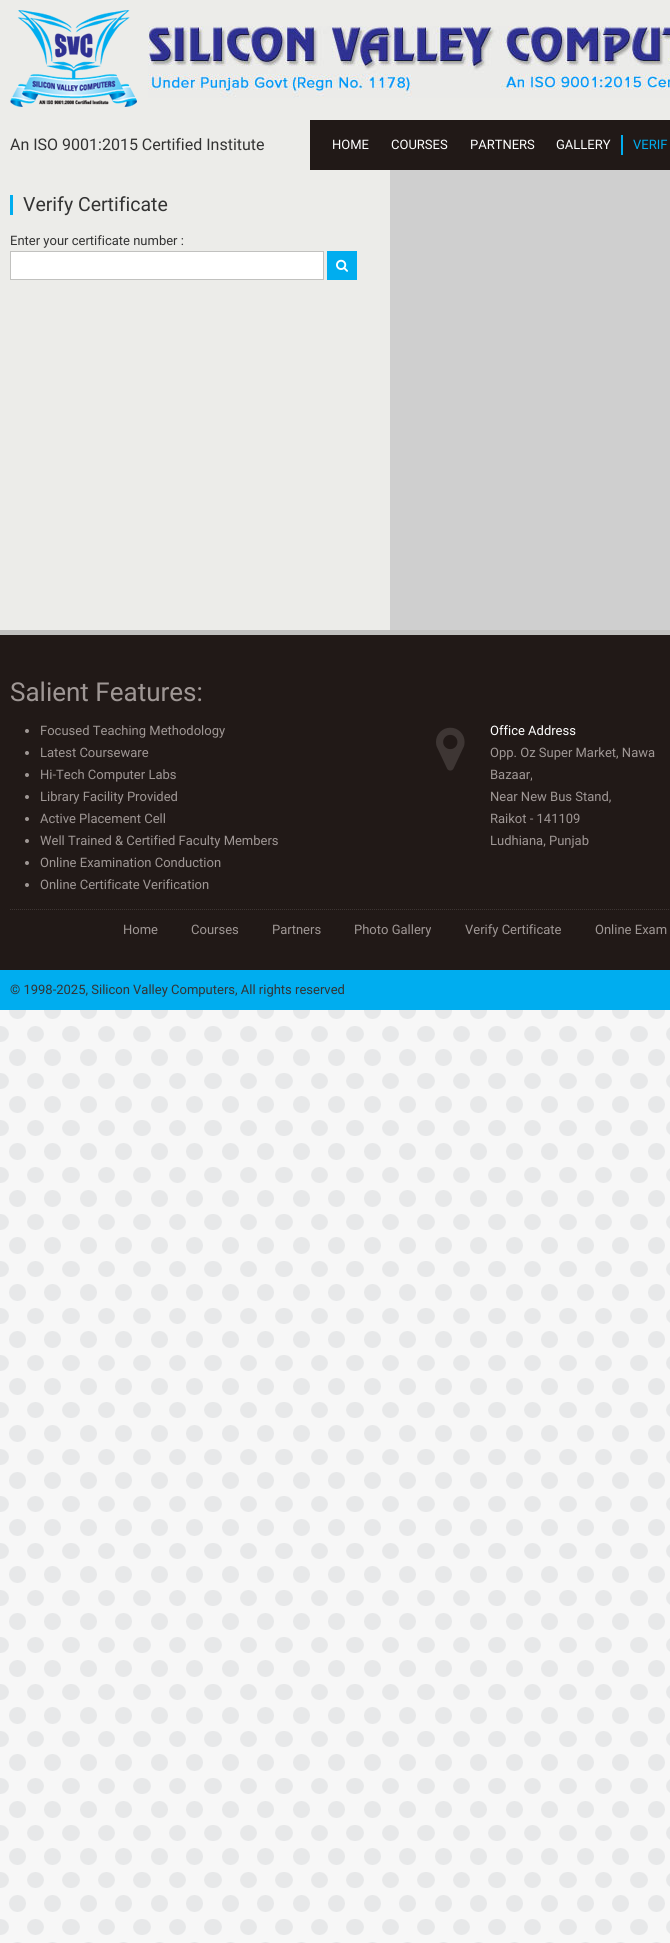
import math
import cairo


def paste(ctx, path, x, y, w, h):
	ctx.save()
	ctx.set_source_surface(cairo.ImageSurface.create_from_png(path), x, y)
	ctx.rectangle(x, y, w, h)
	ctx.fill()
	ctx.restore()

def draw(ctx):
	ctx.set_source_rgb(0.965, 0.965, 0.965)
	ctx.paint()
	paste(ctx, 'media/1.png', 0, 1010, 670, 933)
	ctx.set_source_rgb(0.922, 0.922, 0.914)
	ctx.rectangle(0, 0, 670, 120)
	ctx.fill()
	paste(ctx, 'media/2.png', 10, 10, 127, 97)
	paste(ctx, 'media/3.png', 148, 26, 522, 72)
	ctx.rectangle(0, 120, 310, 50)
	ctx.fill()
	ctx.select_font_face('Roboto')
	ctx.set_font_size(16)
	ctx.set_source_rgb(0.2, 0.2, 0.2)
	ctx.move_to(10, 150)
	ctx.show_text('An ISO 9001:2015 Certified Institute')
	ctx.set_source_rgb(0.129, 0.098, 0.09)
	ctx.rectangle(310, 120, 360, 50)
	ctx.fill()
	ctx.set_font_size(13)
	ctx.set_source_rgb(1, 1, 1)
	for x, y, s in [
		(332, 149, 'HOME'),
		(391, 149, 'COURSES'),
		(470, 149, 'PARTNERS'),
		(556, 149, 'GALLERY'),
	]:
		ctx.move_to(x, y)
		ctx.show_text(s)
	ctx.set_source_rgb(0, 0.678, 0.937)
	ctx.rectangle(621, 135, 2, 20)
	ctx.fill()
	ctx.move_to(633, 149)
	ctx.show_text('VERIF')
	ctx.set_source_rgb(0.922, 0.922, 0.914)
	ctx.rectangle(0, 170, 390, 460)
	ctx.fill()
	ctx.set_source_rgb(0, 0.678, 0.937)
	ctx.rectangle(10, 195, 3, 20)
	ctx.fill()
	ctx.set_font_size(19.5)
	ctx.set_source_rgb(0.2, 0.2, 0.2)
	ctx.move_to(23, 211)
	ctx.show_text('Verify Certificate')
	ctx.set_font_size(13)
	ctx.move_to(10, 245)
	ctx.show_text('Enter your certificate number :')
	ctx.set_source_rgb(1, 1, 1)
	ctx.rectangle(10.5, 251.5, 313, 28)
	ctx.fill_preserve()
	ctx.set_source_rgb(0.757, 0.757, 0.749)
	ctx.set_line_width(1)
	ctx.stroke()
	ctx.set_source_rgb(0, 0.678, 0.937)
	ctx.rectangle(327, 251, 30, 29)
	ctx.fill()
	paste(ctx, 'media/4.png', 336, 259, 12, 13)
	ctx.set_source_rgb(0.812, 0.812, 0.812)
	ctx.rectangle(390, 170, 280, 460)
	ctx.fill()
	ctx.set_source_rgb(0.129, 0.098, 0.09)
	ctx.rectangle(0, 635, 670, 335)
	ctx.fill()
	ctx.set_source_rgb(0.757, 0.757, 0.749)
	ctx.rectangle(0, 630, 670, 5)
	ctx.fill()
	ctx.set_font_size(26)
	ctx.set_source_rgb(0.624, 0.592, 0.584)
	ctx.move_to(10, 701)
	ctx.show_text('Salient Features:')
	ctx.new_path()
	ctx.arc(27, 731, 2, 0, 2 * math.pi)
	ctx.fill()
	ctx.set_font_size(13)
	ctx.move_to(40, 735)
	ctx.show_text('Focused Teaching Methodology')
	ctx.new_path()
	ctx.arc(27, 753, 2, 0, 2 * math.pi)
	ctx.fill()
	ctx.move_to(40, 757)
	ctx.show_text('Latest Courseware')
	ctx.new_path()
	ctx.arc(27, 775, 2, 0, 2 * math.pi)
	ctx.fill()
	ctx.move_to(40, 779)
	ctx.show_text('Hi-Tech Computer Labs')
	ctx.new_path()
	ctx.arc(27, 797, 2, 0, 2 * math.pi)
	ctx.fill()
	ctx.move_to(40, 801)
	ctx.show_text('Library Facility Provided')
	ctx.new_path()
	ctx.arc(27, 819, 2, 0, 2 * math.pi)
	ctx.fill()
	ctx.move_to(40, 823)
	ctx.show_text('Active Placement Cell')
	ctx.new_path()
	ctx.arc(27, 841, 2, 0, 2 * math.pi)
	ctx.fill()
	ctx.move_to(40, 845)
	ctx.show_text('Well Trained & Certified Faculty Members')
	ctx.new_path()
	ctx.arc(27, 863, 2, 0, 2 * math.pi)
	ctx.fill()
	ctx.move_to(40, 867)
	ctx.show_text('Online Examination Conduction')
	ctx.new_path()
	ctx.arc(27, 885, 2, 0, 2 * math.pi)
	ctx.fill()
	ctx.move_to(40, 889)
	ctx.show_text('Online Certificate Verification')
	paste(ctx, 'media/5.png', 436, 727, 29, 44)
	ctx.set_source_rgb(1, 1, 1)
	ctx.move_to(490, 735)
	ctx.show_text('Office Address')
	ctx.set_source_rgb(0.624, 0.592, 0.584)
	for x, y, s in [
		(490, 757, 'Opp. Oz Super Market, Nawa'),
		(490, 779, 'Bazaar,'),
		(490, 801, 'Near New Bus Stand,'),
		(490, 823, 'Raikot - 141109'),
		(490, 845, 'Ludhiana, Punjab'),
	]:
		ctx.move_to(x, y)
		ctx.show_text(s)
	ctx.new_path()
	ctx.move_to(10, 909.5)
	ctx.line_to(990, 909.5)
	ctx.set_source_rgb(0.243, 0.212, 0.204)
	ctx.set_dash([1, 1])
	ctx.stroke()
	ctx.set_source_rgb(0.624, 0.592, 0.584)
	for x, y, s in [
		(123, 934, 'Home'),
		(191, 934, 'Courses'),
		(272, 934, 'Partners'),
		(354, 934, 'Photo Gallery'),
		(465, 934, 'Verify Certificate'),
		(595, 934, 'Online Exam'),
	]:
		ctx.move_to(x, y)
		ctx.show_text(s)
	ctx.set_source_rgb(0, 0.678, 0.937)
	ctx.rectangle(0, 970, 670, 40)
	ctx.fill()
	ctx.set_source_rgb(0.2, 0.2, 0.2)
	ctx.move_to(10, 994)
	ctx.show_text('© 1998-2025, Silicon Valley Computers, All rights reserved')


surface = cairo.ImageSurface(cairo.FORMAT_RGB24, 670, 1943)
ctx = cairo.Context(surface)
options = cairo.FontOptions()
options.set_hint_metrics(cairo.HINT_METRICS_OFF)
options.set_hint_style(cairo.HINT_STYLE_NONE)
ctx.set_font_options(options)
ctx.set_miter_limit(4)
draw(ctx)
surface.write_to_png('image.png')
